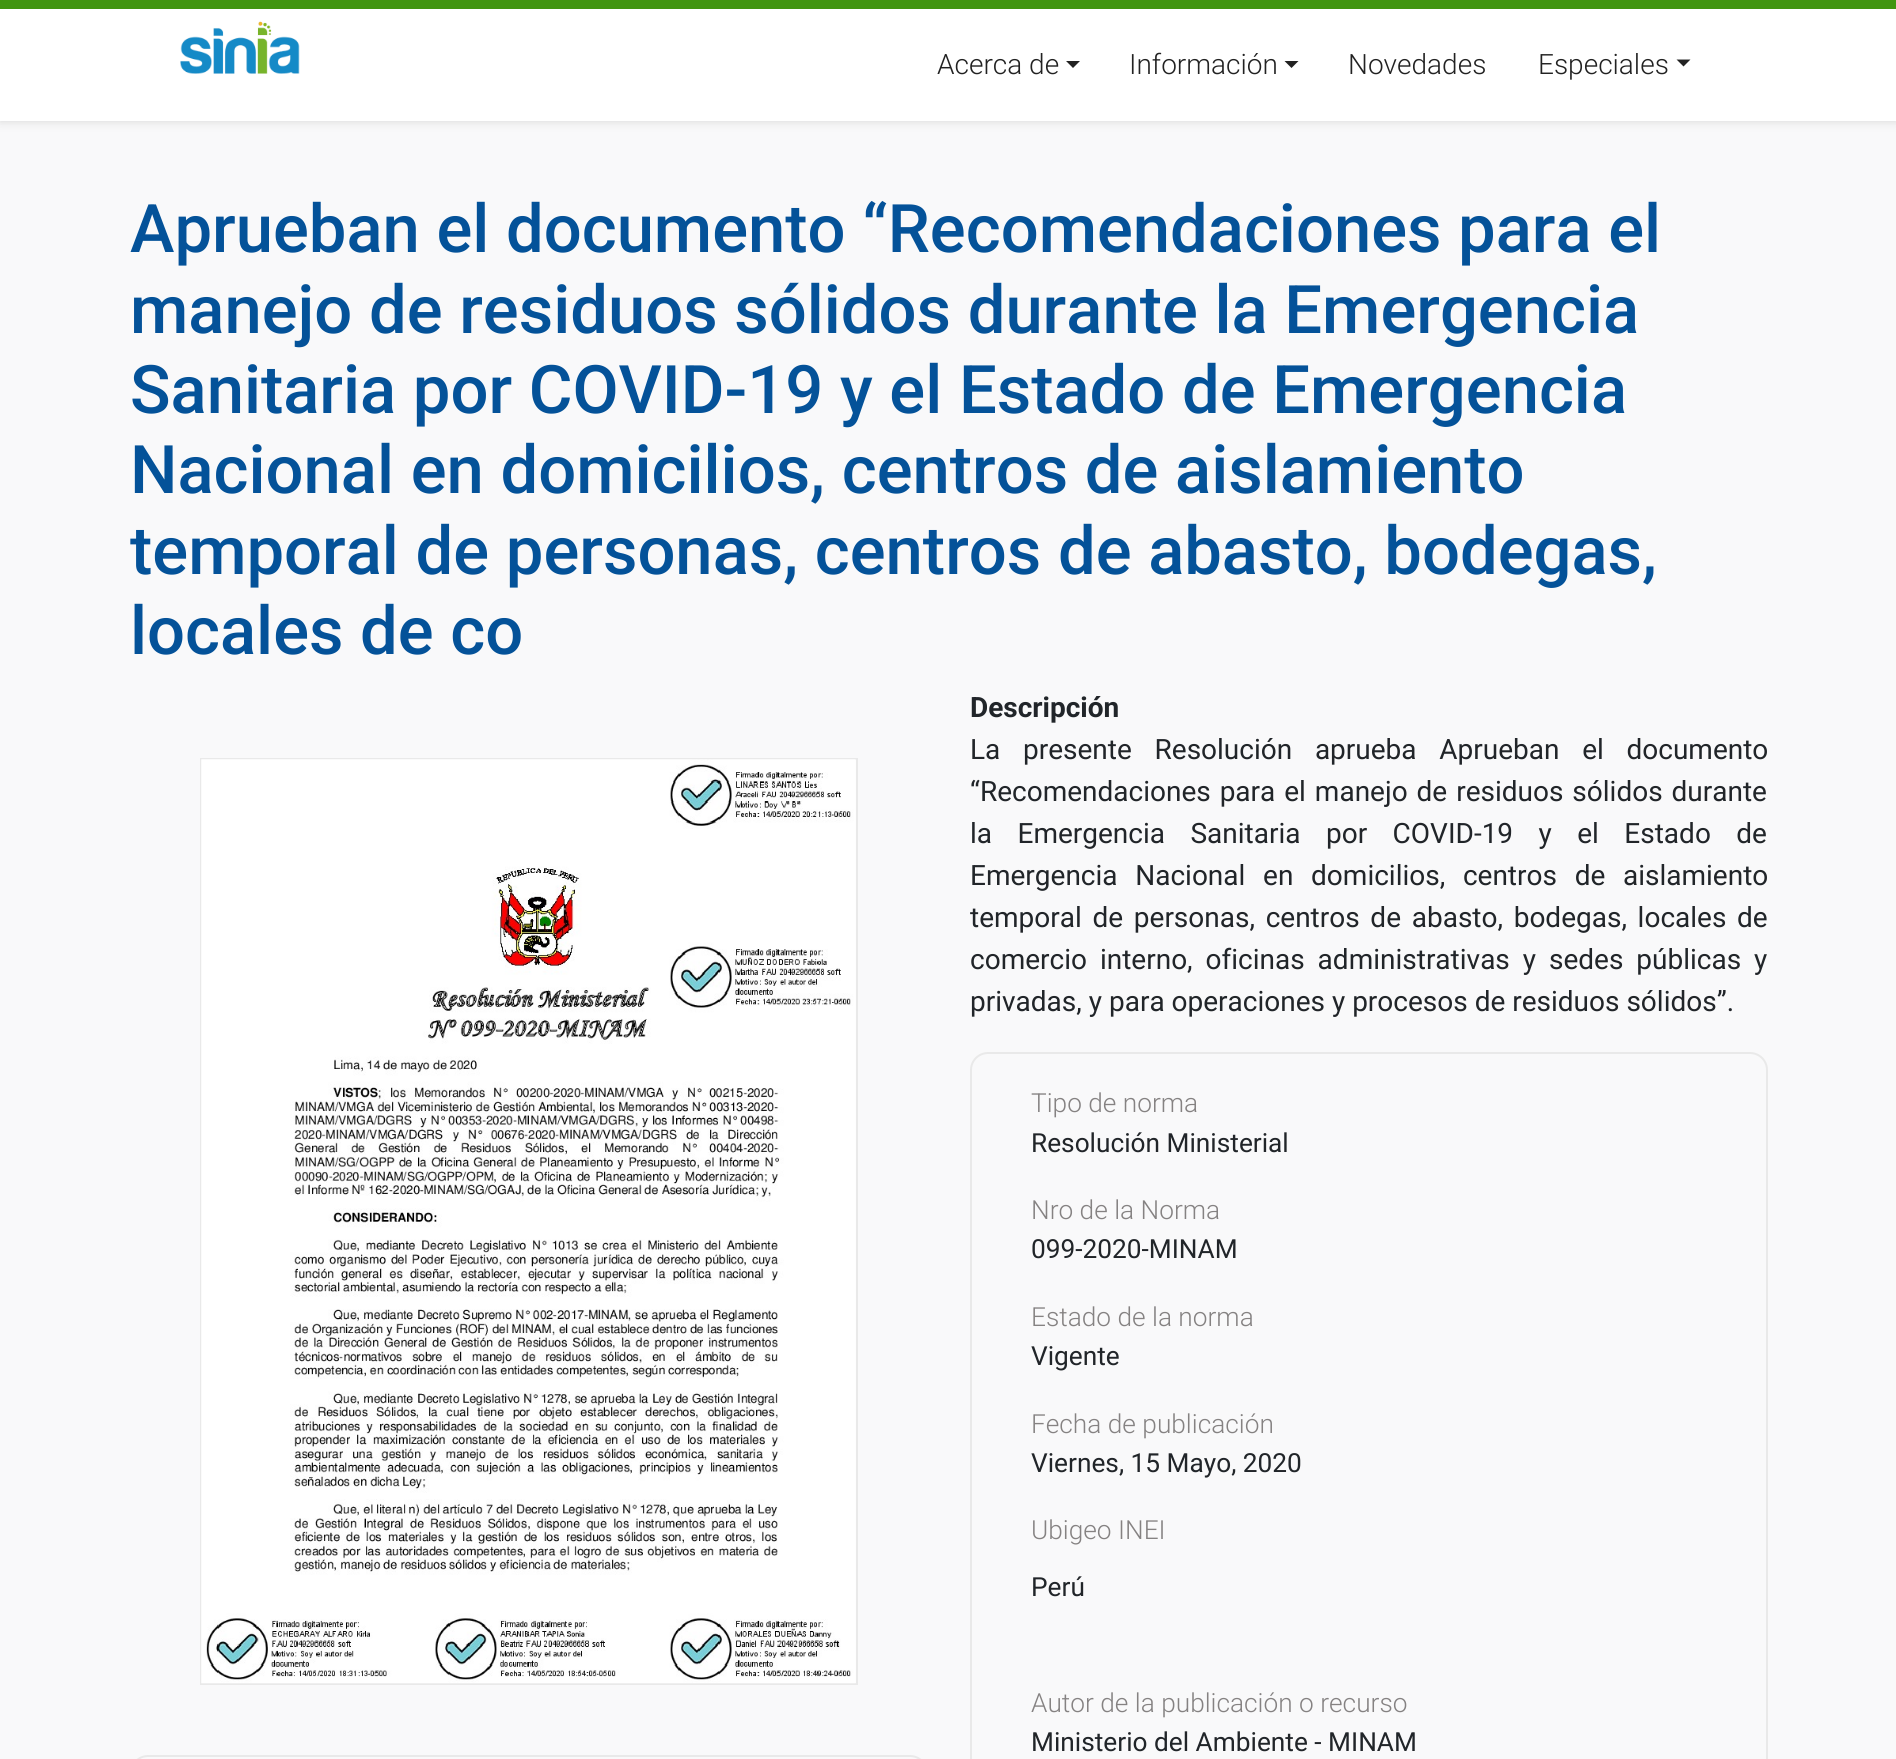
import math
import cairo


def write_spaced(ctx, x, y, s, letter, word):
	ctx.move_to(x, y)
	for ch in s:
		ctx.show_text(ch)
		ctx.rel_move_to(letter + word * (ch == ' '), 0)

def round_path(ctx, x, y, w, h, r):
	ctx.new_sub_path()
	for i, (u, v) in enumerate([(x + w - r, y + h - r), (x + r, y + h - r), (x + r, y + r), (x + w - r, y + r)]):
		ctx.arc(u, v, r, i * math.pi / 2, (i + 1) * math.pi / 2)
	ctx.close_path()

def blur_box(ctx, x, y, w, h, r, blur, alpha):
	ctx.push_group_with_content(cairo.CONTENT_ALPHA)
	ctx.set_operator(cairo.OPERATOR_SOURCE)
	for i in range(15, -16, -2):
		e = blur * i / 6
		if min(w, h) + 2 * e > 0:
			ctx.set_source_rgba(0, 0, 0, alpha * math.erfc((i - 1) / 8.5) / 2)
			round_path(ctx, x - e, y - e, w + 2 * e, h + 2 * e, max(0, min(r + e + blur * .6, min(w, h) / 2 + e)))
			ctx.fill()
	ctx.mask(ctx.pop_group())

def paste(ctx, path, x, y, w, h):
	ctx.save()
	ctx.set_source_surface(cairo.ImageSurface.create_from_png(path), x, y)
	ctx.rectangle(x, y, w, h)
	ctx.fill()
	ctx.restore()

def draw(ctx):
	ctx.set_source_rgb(0.973, 0.976, 0.98)
	ctx.paint()
	ctx.set_source_rgb(0.8, 0.8, 0.8)
	blur_box(ctx, 0, 0, 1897, 121, 0, 5, 0.8)
	ctx.set_source_rgb(1, 1, 1)
	ctx.rectangle(0, 9, 1896, 112)
	ctx.fill()
	ctx.set_source_rgb(0.255, 0.584, 0.063)
	ctx.rectangle(0, 0, 1896, 9)
	ctx.fill()
	paste(ctx, 'media/1.png', 180, 21, 120, 53)
	ctx.select_font_face('Roboto Light')
	ctx.set_font_size(28)
	ctx.set_source_rgb(0.133, 0.133, 0.133)
	ctx.move_to(937, 74)
	ctx.show_text('Acerca de')
	ctx.new_path()
	ctx.move_to(1066, 61)
	ctx.line_to(1080, 61)
	ctx.line_to(1073, 68)
	ctx.close_path()
	ctx.fill()
	ctx.move_to(1129, 74)
	ctx.show_text('Información')
	ctx.new_path()
	ctx.move_to(1284.5, 61)
	ctx.line_to(1298.5, 61)
	ctx.line_to(1291.5, 68)
	ctx.close_path()
	ctx.fill()
	ctx.move_to(1348, 74)
	ctx.show_text('Novedades')
	ctx.move_to(1538, 74)
	ctx.show_text('Especiales')
	ctx.new_path()
	ctx.move_to(1676.5, 59.5)
	ctx.line_to(1690.5, 59.5)
	ctx.line_to(1683.5, 66.5)
	ctx.close_path()
	ctx.fill()
	ctx.select_font_face('Roboto Medium')
	ctx.set_font_size(66.95)
	ctx.set_source_rgb(0.016, 0.322, 0.6)
	for x, y, s in [
		(130, 252, 'Aprueban el documento “Recomendaciones para el'),
		(130, 333, 'manejo de residuos sólidos durante la Emergencia'),
		(130, 413, 'Sanitaria por COVID-19 y el Estado de Emergencia'),
		(130, 493, 'Nacional en domicilios, centros de aislamiento'),
		(130, 574, 'temporal de personas, centros de abasto, bodegas,'),
		(130, 654, 'locales de co'),
	]:
		ctx.move_to(x, y)
		ctx.show_text(s)
	ctx.rectangle(201, 759, 656, 925)
	ctx.set_source_rgb(0.914, 0.914, 0.914)
	ctx.stroke()
	paste(ctx, 'media/2.png', 201, 759, 655, 925)
	round_path(ctx, 131, 1756, 796, 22, 17)
	ctx.stroke()
	ctx.select_font_face('Roboto', cairo.FONT_SLANT_NORMAL, cairo.FONT_WEIGHT_BOLD)
	ctx.set_font_size(28)
	ctx.set_source_rgb(0.129, 0.145, 0.161)
	ctx.move_to(970, 717)
	ctx.show_text('Descripción')
	ctx.select_font_face('Roboto')
	write_spaced(ctx, 970, 759, 'La presente Resolución aprueba Aprueban el documento', 0, 15.75)
	write_spaced(ctx, 970, 801, '“Recomendaciones para el manejo de residuos sólidos durante', 0, 2)
	write_spaced(ctx, 970, 843, 'la Emergencia Sanitaria por COVID-19 y el Estado de', 0, 18.5)
	write_spaced(ctx, 970, 885, 'Emergencia Nacional en domicilios, centros de aislamiento', 0, 10.75)
	write_spaced(ctx, 970, 927, 'temporal de personas, centros de abasto, bodegas, locales de', 0, 3.75)
	write_spaced(ctx, 970, 969, 'comercio interno, oficinas administrativas y sedes públicas y', 0, 6)
	ctx.move_to(970, 1011)
	ctx.show_text('privadas, y para operaciones y procesos de residuos sólidos”.')
	round_path(ctx, 971, 1053, 796, 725, 17)
	ctx.set_source_rgb(0.914, 0.914, 0.914)
	ctx.stroke()
	ctx.select_font_face('Roboto Light')
	ctx.set_font_size(26.25)
	ctx.set_source_rgb(0.522, 0.51, 0.51)
	ctx.move_to(1031, 1112)
	ctx.show_text('Tipo de norma')
	ctx.select_font_face('Roboto')
	ctx.set_source_rgb(0.129, 0.145, 0.161)
	ctx.move_to(1031, 1152)
	ctx.show_text('Resolución Ministerial')
	ctx.select_font_face('Roboto Light')
	ctx.set_source_rgb(0.522, 0.51, 0.51)
	ctx.move_to(1031, 1219)
	ctx.show_text('Nro de la Norma')
	ctx.select_font_face('Roboto')
	ctx.set_source_rgb(0.129, 0.145, 0.161)
	ctx.move_to(1031, 1258)
	ctx.show_text('099-2020-MINAM')
	ctx.select_font_face('Roboto Light')
	ctx.set_source_rgb(0.522, 0.51, 0.51)
	ctx.move_to(1031, 1326)
	ctx.show_text('Estado de la norma')
	ctx.select_font_face('Roboto')
	ctx.set_source_rgb(0.129, 0.145, 0.161)
	ctx.move_to(1031, 1365)
	ctx.show_text('Vigente')
	ctx.select_font_face('Roboto Light')
	ctx.set_source_rgb(0.522, 0.51, 0.51)
	ctx.move_to(1031, 1433)
	ctx.show_text('Fecha de publicación')
	ctx.select_font_face('Roboto')
	ctx.set_source_rgb(0.129, 0.145, 0.161)
	ctx.move_to(1031, 1472)
	ctx.show_text('Viernes, 15 Mayo, 2020')
	ctx.select_font_face('Roboto Light')
	ctx.set_source_rgb(0.522, 0.51, 0.51)
	ctx.move_to(1031, 1539)
	ctx.show_text('Ubigeo INEI')
	ctx.select_font_face('Roboto')
	ctx.set_source_rgb(0.129, 0.145, 0.161)
	ctx.move_to(1031, 1596)
	ctx.show_text('Perú')
	ctx.select_font_face('Roboto Light')
	ctx.set_source_rgb(0.522, 0.51, 0.51)
	ctx.move_to(1031, 1712)
	ctx.show_text('Autor de la publicación o recurso')
	ctx.select_font_face('Roboto')
	ctx.set_source_rgb(0.129, 0.145, 0.161)
	ctx.move_to(1031, 1751)
	ctx.show_text('Ministerio del Ambiente - MINAM')


surface = cairo.ImageSurface(cairo.FORMAT_RGB24, 1896, 1759)
ctx = cairo.Context(surface)
options = cairo.FontOptions()
options.set_hint_metrics(cairo.HINT_METRICS_OFF)
options.set_hint_style(cairo.HINT_STYLE_NONE)
ctx.set_font_options(options)
ctx.set_miter_limit(4)
draw(ctx)
surface.write_to_png('image.png')
